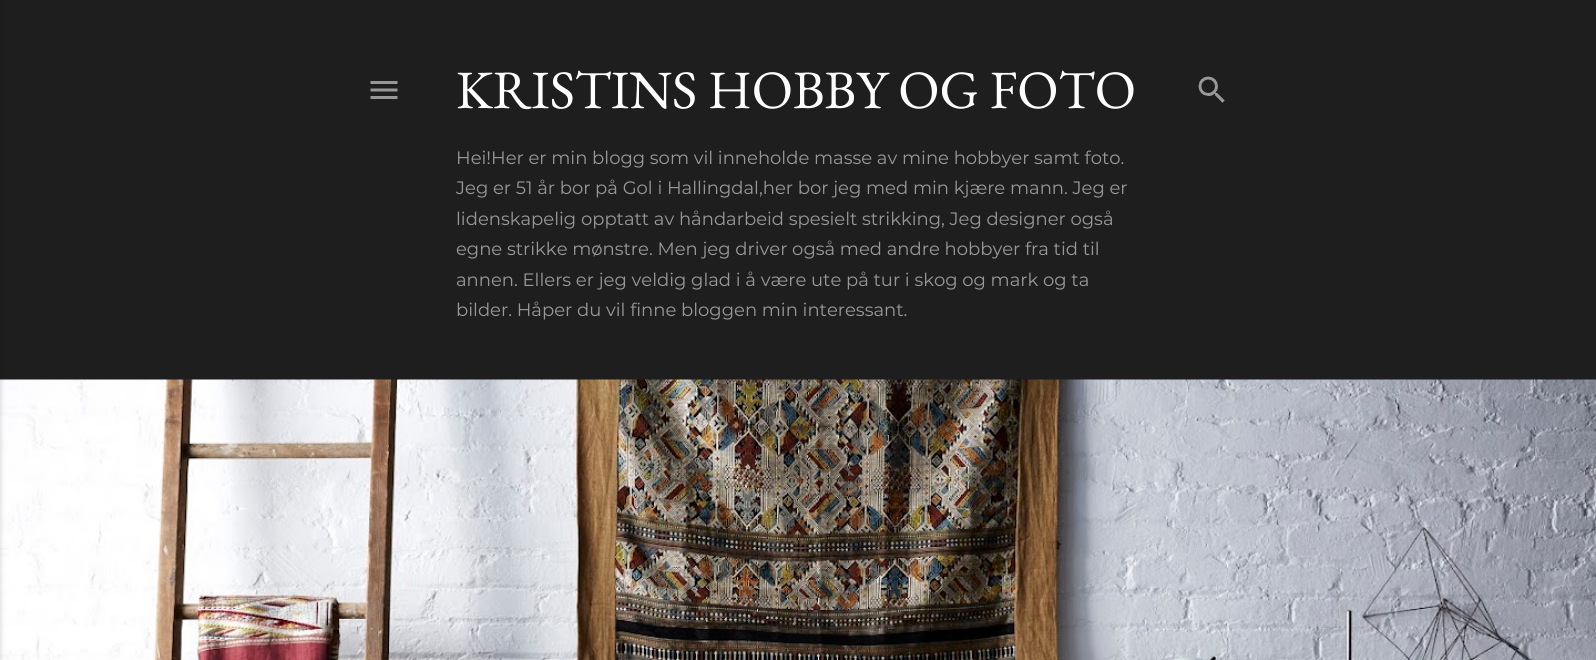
import math
import cairo


def round_path(ctx, x, y, w, h, r):
	ctx.new_sub_path()
	for i, (u, v) in enumerate([(x + w - r, y + h - r), (x + r, y + h - r), (x + r, y + r), (x + w - r, y + r)]):
		ctx.arc(u, v, r, i * math.pi / 2, (i + 1) * math.pi / 2)
	ctx.close_path()

def blur_box(ctx, x, y, w, h, r, blur, alpha):
	ctx.push_group_with_content(cairo.CONTENT_ALPHA)
	ctx.set_operator(cairo.OPERATOR_SOURCE)
	for i in range(15, -16, -2):
		e = blur * i / 6
		if min(w, h) + 2 * e > 0:
			ctx.set_source_rgba(0, 0, 0, alpha * math.erfc((i - 1) / 8.5) / 2)
			round_path(ctx, x - e, y - e, w + 2 * e, h + 2 * e, max(0, min(r + e + blur * .6, min(w, h) / 2 + e)))
			ctx.fill()
	ctx.mask(ctx.pop_group())

def paste(ctx, path, x, y, w, h):
	ctx.save()
	ctx.set_source_surface(cairo.ImageSurface.create_from_png(path), x, y)
	ctx.rectangle(x, y, w, h)
	ctx.fill()
	ctx.restore()

def draw(ctx):
	ctx.set_source_rgb(0.118, 0.118, 0.118)
	ctx.paint()
	paste(ctx, 'media/3.png', 0, 379, 1596, 281)
	ctx.set_source_rgb(0, 0, 0)
	blur_box(ctx, -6, 0, 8, 660, 0, 2, 0.1)
	paste(ctx, 'media/1.png', 370, 81, 28, 18)
	ctx.select_font_face('EB Garamond')
	ctx.set_font_size(54)
	ctx.set_source_rgb(1, 1, 1)
	ctx.move_to(456, 108)
	ctx.show_text('KRISTINS HOBBY OG FOTO')
	ctx.select_font_face('Montserrat')
	ctx.set_font_size(18)
	ctx.set_source_rgb(0.596, 0.596, 0.596)
	for x, y, s in [
		(456, 164, 'Hei!Her er min blogg som vil inneholde masse av mine hobbyer samt foto.'),
		(456, 194, 'Jeg er 51 år bor på Gol i Hallingdal,her bor jeg med min kjære mann. Jeg er'),
		(456, 225, 'lidenskapelig opptatt av håndarbeid spesielt strikking, Jeg designer også'),
		(456, 255, 'egne strikke mønstre. Men jeg driver også med andre hobbyer fra tid til'),
		(456, 286, 'annen. Ellers er jeg veldig glad i å være ute på tur i skog og mark og ta'),
		(456, 316, 'bilder. Håper du vil finne bloggen min interessant.'),
	]:
		ctx.move_to(x, y)
		ctx.show_text(s)
	paste(ctx, 'media/2.png', 1198, 76, 27, 27)


surface = cairo.ImageSurface(cairo.FORMAT_RGB24, 1596, 660)
ctx = cairo.Context(surface)
options = cairo.FontOptions()
options.set_hint_metrics(cairo.HINT_METRICS_OFF)
options.set_hint_style(cairo.HINT_STYLE_NONE)
ctx.set_font_options(options)
ctx.set_miter_limit(4)
draw(ctx)
surface.write_to_png('image.png')
